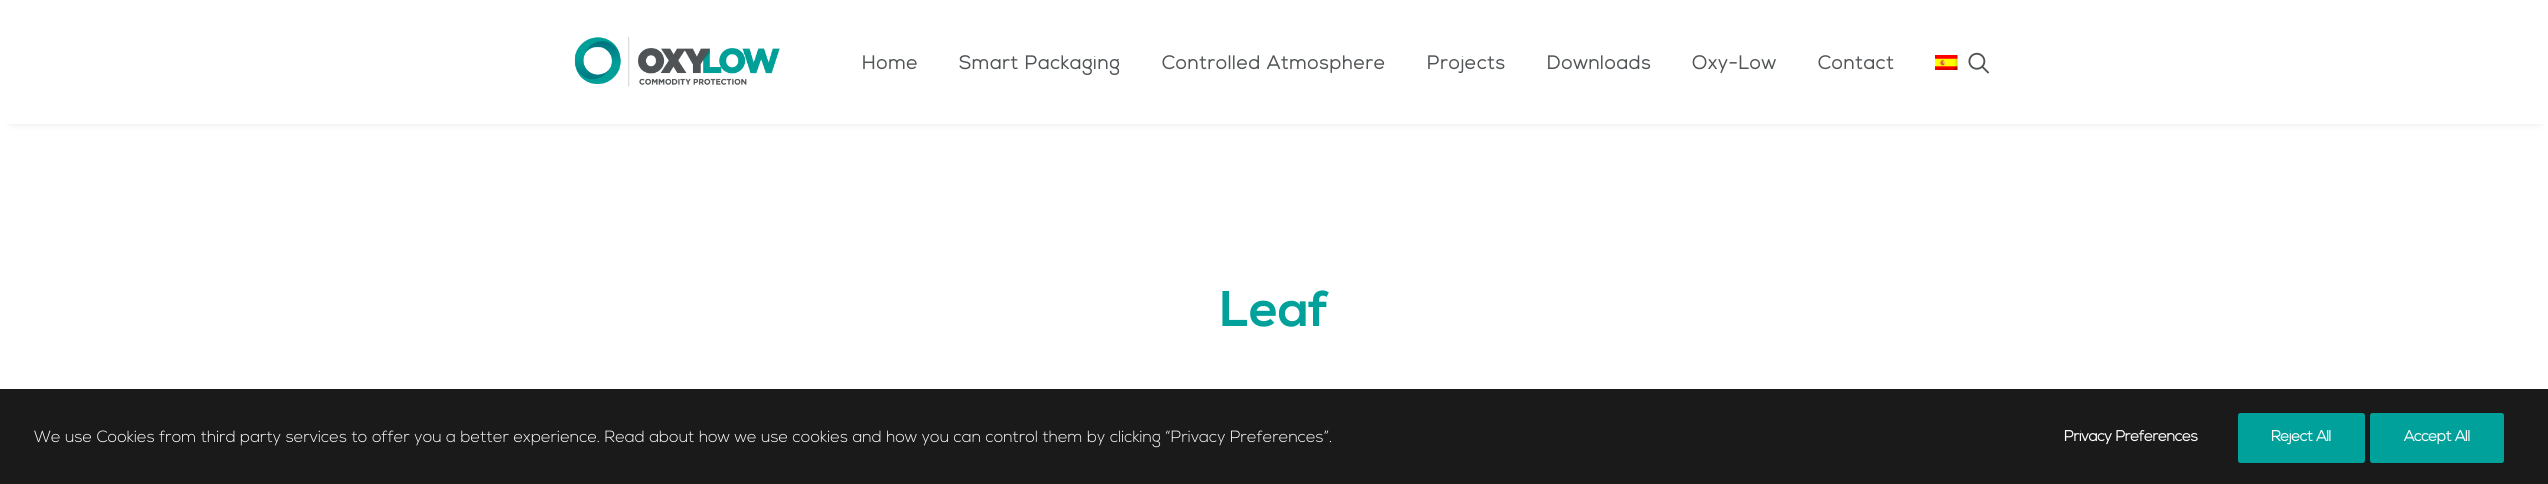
import math
import cairo


def write_spaced(ctx, x, y, s, letter, word):
	ctx.move_to(x, y)
	for ch in s:
		ctx.show_text(ch)
		ctx.rel_move_to(letter + word * (ch == ' '), 0)

def round_path(ctx, x, y, w, h, r):
	ctx.new_sub_path()
	for i, (u, v) in enumerate([(x + w - r, y + h - r), (x + r, y + h - r), (x + r, y + r), (x + w - r, y + r)]):
		ctx.arc(u, v, r, i * math.pi / 2, (i + 1) * math.pi / 2)
	ctx.close_path()

def blur_box(ctx, x, y, w, h, r, blur, alpha):
	ctx.push_group_with_content(cairo.CONTENT_ALPHA)
	ctx.set_operator(cairo.OPERATOR_SOURCE)
	for i in range(15, -16, -2):
		e = blur * i / 6
		if min(w, h) + 2 * e > 0:
			ctx.set_source_rgba(0, 0, 0, alpha * math.erfc((i - 1) / 8.5) / 2)
			round_path(ctx, x - e, y - e, w + 2 * e, h + 2 * e, max(0, min(r + e + blur * .6, min(w, h) / 2 + e)))
			ctx.fill()
	ctx.mask(ctx.pop_group())

def paste(ctx, path, x, y, w, h):
	ctx.save()
	ctx.set_source_surface(cairo.ImageSurface.create_from_png(path), x, y)
	ctx.rectangle(x, y, w, h)
	ctx.fill()
	ctx.restore()

def draw(ctx):
	ctx.set_source_rgb(1, 1, 1)
	ctx.paint()
	ctx.set_source_rgb(0, 0, 0)
	blur_box(ctx, 13, 18, 2525, 98, 0, 6, 0.6)
	ctx.set_source_rgb(1, 1, 1)
	ctx.rectangle(0, 5, 2548, 119)
	ctx.fill()
	paste(ctx, 'media/1.png', 574, 36, 206, 51)
	ctx.select_font_face('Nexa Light', cairo.FONT_SLANT_NORMAL, cairo.FONT_WEIGHT_BOLD)
	ctx.set_font_size(18.75)
	ctx.set_source_rgb(0.314, 0.329, 0.337)
	for x, y, s in [
		(862, 69, 'Home'),
		(959, 69, 'Smart Packaging'),
		(1162, 69, 'Controlled Atmosphere'),
		(1427, 69, 'Projects'),
		(1547, 69, 'Downloads'),
		(1692, 69, 'Oxy-Low'),
		(1818, 69, 'Contact'),
	]:
		write_spaced(ctx, x, y, s, 0.9, 0)
	paste(ctx, 'media/2.png', 1935, 55, 23, 15)
	paste(ctx, 'media/3.png', 1968, 52, 22, 22)
	ctx.select_font_face('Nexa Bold', cairo.FONT_SLANT_NORMAL, cairo.FONT_WEIGHT_BOLD)
	ctx.set_font_size(50)
	ctx.set_source_rgb(0, 0.631, 0.604)
	ctx.move_to(1220, 326)
	ctx.show_text('Leaf')
	ctx.set_source_rgb(0.102, 0.102, 0.102)
	ctx.rectangle(0, 389, 2548, 95)
	ctx.fill()
	ctx.select_font_face('Nexa Light Light')
	ctx.set_font_size(16.25)
	ctx.set_source_rgb(1, 1, 1)
	ctx.move_to(34, 442)
	ctx.show_text('We use Cookies from third party services to offer you a better experience. Read about how we use cookies and how you can control them by clicking “Privacy Preferences”.')
	ctx.select_font_face('Nexa Light', cairo.FONT_SLANT_NORMAL, cairo.FONT_WEIGHT_BOLD)
	ctx.set_font_size(15)
	write_spaced(ctx, 2064, 441, 'Privacy Preferences', -0.4, 0)
	ctx.set_source_rgb(0, 0.631, 0.604)
	round_path(ctx, 2238, 413, 127, 50, 2.5)
	ctx.fill()
	ctx.set_source_rgb(1, 1, 1)
	write_spaced(ctx, 2271, 441, 'Reject All', -0.4, 0)
	ctx.set_source_rgb(0, 0.631, 0.604)
	round_path(ctx, 2370, 413, 134, 50, 2.5)
	ctx.fill()
	ctx.set_source_rgb(1, 1, 1)
	write_spaced(ctx, 2404, 441, 'Accept All', -0.4, 0)


surface = cairo.ImageSurface(cairo.FORMAT_RGB24, 2548, 484)
ctx = cairo.Context(surface)
options = cairo.FontOptions()
options.set_hint_metrics(cairo.HINT_METRICS_OFF)
options.set_hint_style(cairo.HINT_STYLE_NONE)
ctx.set_font_options(options)
ctx.set_miter_limit(4)
draw(ctx)
surface.write_to_png('image.png')
